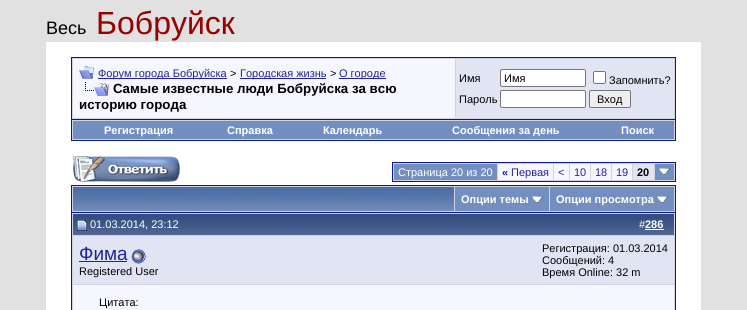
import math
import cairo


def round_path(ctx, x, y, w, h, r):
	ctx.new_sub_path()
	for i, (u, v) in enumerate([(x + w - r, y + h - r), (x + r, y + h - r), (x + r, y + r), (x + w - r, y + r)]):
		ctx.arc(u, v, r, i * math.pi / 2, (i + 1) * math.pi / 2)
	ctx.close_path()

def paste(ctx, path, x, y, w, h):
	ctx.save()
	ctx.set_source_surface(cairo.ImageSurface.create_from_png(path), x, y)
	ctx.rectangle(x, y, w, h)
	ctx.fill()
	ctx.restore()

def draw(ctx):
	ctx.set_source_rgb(0.882, 0.882, 0.886)
	ctx.paint()
	ctx.select_font_face('Liberation Sans')
	ctx.set_font_size(18)
	ctx.set_source_rgb(0, 0, 0)
	ctx.move_to(46, 34)
	ctx.show_text('Весь')
	ctx.set_font_size(32)
	ctx.set_source_rgb(0.596, 0, 0)
	ctx.move_to(96, 34)
	ctx.show_text('Бобруйск')
	ctx.set_source_rgb(1, 1, 1)
	ctx.rectangle(46, 42, 655, 268)
	ctx.fill()
	ctx.set_source_rgb(0.82, 0.82, 0.882)
	ctx.rectangle(71.5, 57.5, 604, 62)
	ctx.fill_preserve()
	ctx.set_source_rgb(0.043, 0.098, 0.549)
	ctx.set_line_width(1)
	ctx.stroke()
	ctx.set_source_rgb(0.961, 0.961, 1)
	ctx.rectangle(73, 59, 382, 59)
	ctx.fill()
	paste(ctx, 'media/1.png', 79, 66, 15, 13)
	ctx.set_source_rgb(0.133, 0.133, 0.612)
	ctx.rectangle(98, 78, 129, 1)
	ctx.fill()
	ctx.set_font_size(11)
	ctx.move_to(98, 77)
	ctx.show_text('Форум города Бобруйска')
	ctx.set_source_rgb(0, 0, 0)
	ctx.move_to(230, 77)
	ctx.show_text('>')
	ctx.set_source_rgb(0.133, 0.133, 0.612)
	ctx.rectangle(240, 78, 86, 1)
	ctx.fill()
	ctx.move_to(240, 77)
	ctx.show_text('Городская жизнь')
	ctx.set_source_rgb(0, 0, 0)
	ctx.move_to(330, 77)
	ctx.show_text('>')
	ctx.set_source_rgb(0.133, 0.133, 0.612)
	ctx.rectangle(339, 78, 47, 1)
	ctx.fill()
	ctx.move_to(339, 77)
	ctx.show_text('О городе')
	paste(ctx, 'media/2.png', 85, 82, 24, 14)
	ctx.select_font_face('Liberation Sans', cairo.FONT_SLANT_NORMAL, cairo.FONT_WEIGHT_BOLD)
	ctx.set_font_size(13.3)
	ctx.set_source_rgb(0, 0, 0)
	ctx.move_to(113, 93)
	ctx.show_text('Самые известные люди Бобруйска за всю')
	ctx.move_to(79, 109)
	ctx.show_text('историю города')
	ctx.set_source_rgb(0.882, 0.894, 0.949)
	ctx.rectangle(456, 59, 218, 59)
	ctx.fill()
	ctx.select_font_face('Liberation Sans')
	ctx.set_font_size(11)
	ctx.set_source_rgb(0, 0, 0)
	ctx.move_to(459, 82)
	ctx.show_text('Имя')
	ctx.set_source_rgb(1, 1, 1)
	round_path(ctx, 500.5, 69.5, 85, 17, 1.5)
	ctx.fill_preserve()
	ctx.set_source_rgb(0.463, 0.463, 0.463)
	ctx.stroke()
	ctx.set_source_rgb(0, 0, 0)
	ctx.move_to(504, 82)
	ctx.show_text('Имя')
	ctx.set_source_rgb(1, 1, 1)
	round_path(ctx, 593.5, 71.5, 12, 12, 1.5)
	ctx.fill_preserve()
	ctx.set_source_rgb(0.463, 0.463, 0.463)
	ctx.stroke()
	ctx.set_source_rgb(0, 0, 0)
	ctx.move_to(609, 84)
	ctx.show_text('Запомнить?')
	ctx.move_to(459, 103)
	ctx.show_text('Пароль')
	ctx.set_source_rgb(1, 1, 1)
	round_path(ctx, 500.5, 90.5, 85, 17, 1.5)
	ctx.fill_preserve()
	ctx.set_source_rgb(0.463, 0.463, 0.463)
	ctx.stroke()
	ctx.set_source_rgb(0.937, 0.937, 0.937)
	round_path(ctx, 589.5, 90.5, 41, 17, 1.5)
	ctx.fill_preserve()
	ctx.set_source_rgb(0.463, 0.463, 0.463)
	ctx.stroke()
	ctx.set_source_rgb(0, 0, 0)
	ctx.move_to(597, 103)
	ctx.show_text('Вход')
	ctx.set_source_rgb(0.82, 0.82, 0.882)
	ctx.rectangle(72, 120, 603, 20)
	ctx.fill()
	ctx.set_source_rgb(0.043, 0.098, 0.549)
	ctx.rectangle(675, 120, 1, 21)
	ctx.rectangle(71, 140, 605, 1)
	ctx.rectangle(71, 120, 1, 21)
	ctx.fill()
	ctx.set_source_rgb(0.451, 0.561, 0.749)
	ctx.rectangle(73, 121, 601, 18)
	ctx.fill()
	ctx.select_font_face('Liberation Sans', cairo.FONT_SLANT_NORMAL, cairo.FONT_WEIGHT_BOLD)
	ctx.set_source_rgb(1, 1, 1)
	for x, y, s in [
		(104, 134, 'Регистрация'),
		(227, 134, 'Справка'),
		(323, 134, 'Календарь'),
		(452, 134, 'Сообщения за день'),
		(621, 134, 'Поиск'),
	]:
		ctx.move_to(x, y)
		ctx.show_text(s)
	paste(ctx, 'media/3.png', 72, 156, 108, 26)
	ctx.set_source_rgb(0.82, 0.82, 0.882)
	ctx.rectangle(392.5, 162.5, 283, 19)
	ctx.fill_preserve()
	ctx.set_source_rgb(0.043, 0.098, 0.549)
	ctx.stroke()
	ctx.set_source_rgb(0.451, 0.561, 0.749)
	ctx.rectangle(394, 164, 103, 16)
	ctx.fill()
	ctx.select_font_face('Liberation Sans')
	ctx.set_source_rgb(1, 1, 1)
	ctx.move_to(398, 176)
	ctx.show_text('Страница 20 из 20')
	ctx.set_source_rgb(0.961, 0.961, 1)
	ctx.rectangle(498, 164, 55, 16)
	ctx.fill()
	ctx.select_font_face('Liberation Sans', cairo.FONT_SLANT_NORMAL, cairo.FONT_WEIGHT_BOLD)
	ctx.set_source_rgb(0.133, 0.133, 0.612)
	ctx.move_to(502, 176)
	ctx.show_text('«')
	ctx.select_font_face('Liberation Sans')
	ctx.move_to(511, 176)
	ctx.show_text('Первая')
	ctx.set_source_rgb(0.961, 0.961, 1)
	ctx.rectangle(554, 164, 15, 16)
	ctx.fill()
	ctx.set_source_rgb(0.133, 0.133, 0.612)
	ctx.move_to(558, 176)
	ctx.show_text('<')
	ctx.set_source_rgb(0.961, 0.961, 1)
	ctx.rectangle(570, 164, 20, 16)
	ctx.fill()
	ctx.set_source_rgb(0.133, 0.133, 0.612)
	ctx.move_to(574, 176)
	ctx.show_text('10')
	ctx.set_source_rgb(0.961, 0.961, 1)
	ctx.rectangle(591, 164, 20, 16)
	ctx.fill()
	ctx.set_source_rgb(0.133, 0.133, 0.612)
	ctx.move_to(595, 176)
	ctx.show_text('18')
	ctx.set_source_rgb(0.961, 0.961, 1)
	ctx.rectangle(612, 164, 20, 16)
	ctx.fill()
	ctx.set_source_rgb(0.133, 0.133, 0.612)
	ctx.move_to(616, 176)
	ctx.show_text('19')
	ctx.set_source_rgb(0.882, 0.894, 0.949)
	ctx.rectangle(633, 164, 21, 16)
	ctx.fill()
	ctx.select_font_face('Liberation Sans', cairo.FONT_SLANT_NORMAL, cairo.FONT_WEIGHT_BOLD)
	ctx.set_source_rgb(0, 0, 0)
	ctx.move_to(637, 176)
	ctx.show_text('20')
	ctx.set_source_rgb(0.451, 0.561, 0.749)
	ctx.rectangle(655, 164, 19, 16)
	ctx.fill()
	paste(ctx, 'media/4.png', 659, 168, 11, 7)
	ctx.set_source_rgb(0.82, 0.82, 0.882)
	ctx.rectangle(72, 186, 603, 26)
	ctx.fill()
	ctx.set_source_rgb(0.043, 0.098, 0.549)
	ctx.rectangle(71, 185, 605, 1)
	ctx.rectangle(675, 185, 1, 27)
	ctx.rectangle(71, 185, 1, 27)
	ctx.fill()
	paste(ctx, 'media/5.png', 73, 187, 381, 24)
	ctx.set_source_rgb(0.451, 0.561, 0.749)
	ctx.rectangle(455, 187, 94, 24)
	ctx.fill()
	ctx.set_source_rgb(1, 1, 1)
	ctx.move_to(461, 203)
	ctx.show_text('Опции темы')
	paste(ctx, 'media/4.png', 532, 196, 11, 7)
	ctx.set_source_rgb(0.451, 0.561, 0.749)
	ctx.rectangle(550, 187, 124, 24)
	ctx.fill()
	ctx.set_source_rgb(1, 1, 1)
	ctx.move_to(556, 203)
	ctx.show_text('Опции просмотра')
	paste(ctx, 'media/4.png', 657, 196, 11, 7)
	ctx.set_source_rgb(0.82, 0.82, 0.882)
	ctx.rectangle(71.5, 212.5, 604, 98)
	ctx.fill_preserve()
	ctx.set_source_rgb(0.043, 0.098, 0.549)
	ctx.stroke()
	paste(ctx, 'media/6.png', 73, 214, 601, 21)
	paste(ctx, 'media/7.png', 77, 220, 10, 11)
	ctx.select_font_face('Liberation Sans')
	ctx.set_source_rgb(1, 1, 1)
	ctx.move_to(90, 228)
	ctx.show_text('01.03.2014, 23:12')
	ctx.move_to(639, 228)
	ctx.show_text('#')
	ctx.select_font_face('Liberation Sans', cairo.FONT_SLANT_NORMAL, cairo.FONT_WEIGHT_BOLD)
	ctx.move_to(645, 228)
	ctx.show_text('286')
	ctx.rectangle(645, 229, 19, 1)
	ctx.fill()
	ctx.set_source_rgb(0.882, 0.894, 0.949)
	ctx.rectangle(73, 236, 601, 48)
	ctx.fill()
	ctx.select_font_face('Liberation Sans')
	ctx.set_font_size(19)
	ctx.set_source_rgb(0.133, 0.133, 0.612)
	ctx.move_to(79, 260)
	ctx.show_text('Фима')
	ctx.rectangle(79, 261, 48, 1)
	ctx.fill()
	paste(ctx, 'media/8.png', 131, 249, 15, 15)
	ctx.set_font_size(11)
	ctx.set_source_rgb(0, 0, 0)
	for x, y, s in [
		(79, 275, 'Registered User'),
		(542, 252, 'Регистрация: 01.03.2014'),
		(542, 264, 'Сообщений: 4'),
		(542, 276, 'Время Online: 32 m'),
	]:
		ctx.move_to(x, y)
		ctx.show_text(s)
	ctx.set_source_rgb(0.961, 0.961, 1)
	ctx.rectangle(73, 285, 601, 25)
	ctx.fill()
	ctx.set_source_rgb(0, 0, 0)
	ctx.move_to(99, 306)
	ctx.show_text('Цитата:')


surface = cairo.ImageSurface(cairo.FORMAT_RGB24, 747, 310)
ctx = cairo.Context(surface)
options = cairo.FontOptions()
options.set_hint_metrics(cairo.HINT_METRICS_OFF)
options.set_hint_style(cairo.HINT_STYLE_NONE)
ctx.set_font_options(options)
ctx.set_miter_limit(4)
draw(ctx)
surface.write_to_png('image.png')
